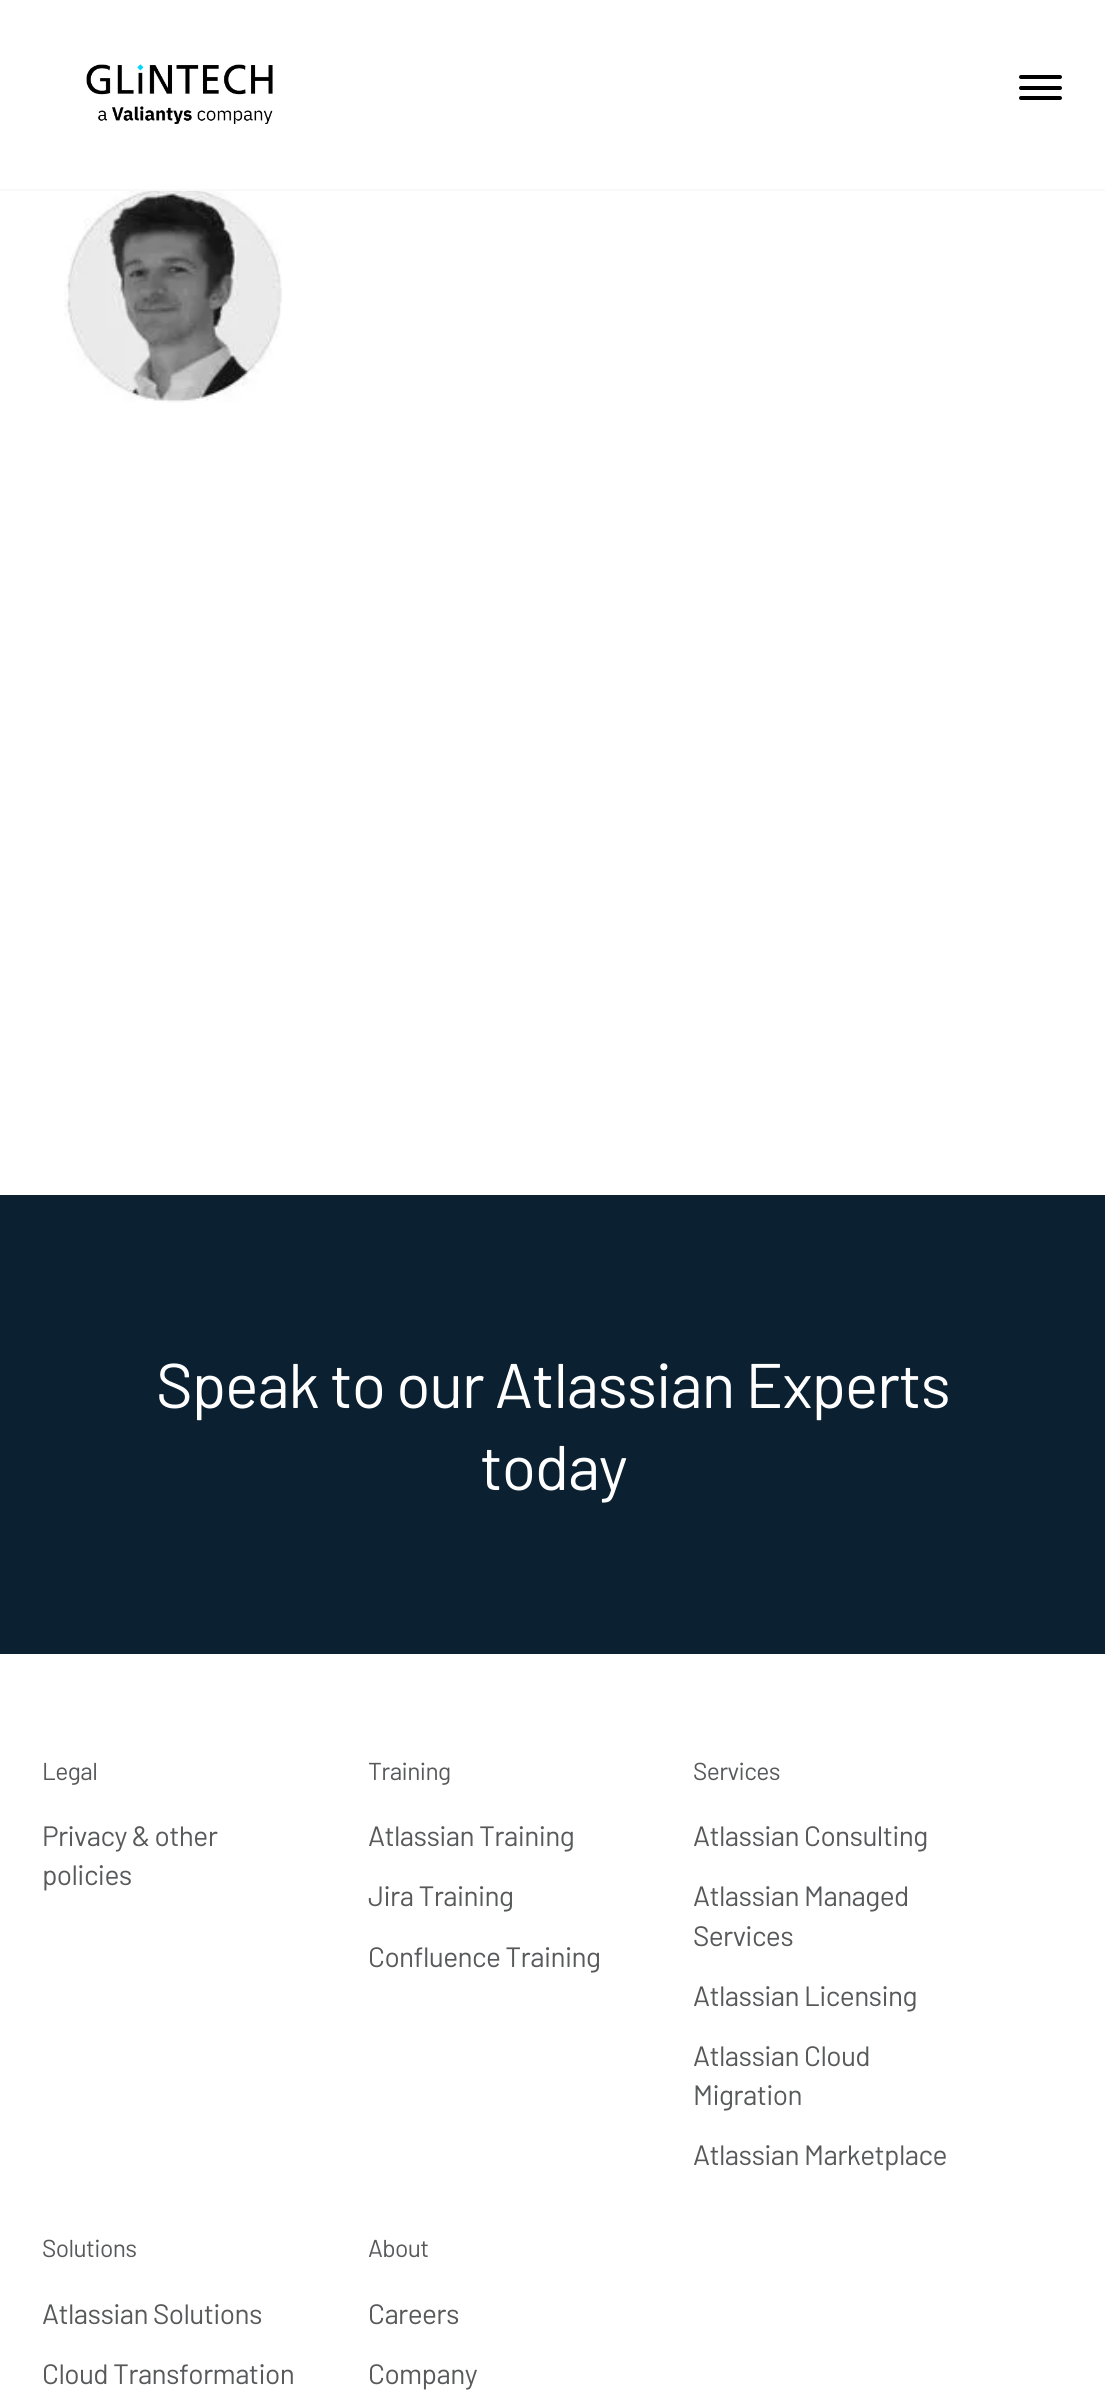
import math
import cairo


def write_spaced(ctx, x, y, s, letter, word):
	ctx.move_to(x, y)
	for ch in s:
		ctx.show_text(ch)
		ctx.rel_move_to(letter + word * (ch == ' '), 0)

def round_path(ctx, x, y, w, h, r):
	ctx.new_sub_path()
	for i, (u, v) in enumerate([(x + w - r, y + h - r), (x + r, y + h - r), (x + r, y + r), (x + w - r, y + r)]):
		ctx.arc(u, v, r, i * math.pi / 2, (i + 1) * math.pi / 2)
	ctx.close_path()

def paste(ctx, path, x, y, w, h):
	ctx.save()
	ctx.set_source_surface(cairo.ImageSurface.create_from_png(path), x, y)
	ctx.rectangle(x, y, w, h)
	ctx.fill()
	ctx.restore()

def draw(ctx):
	ctx.set_source_rgb(1, 1, 1)
	ctx.paint()
	ctx.set_source_rgb(0.976, 0.976, 0.976)
	ctx.rectangle(0, 189, 1105, 2)
	ctx.fill()
	paste(ctx, 'media/1.png', 86, 64, 187, 60)
	ctx.set_source_rgb(0, 0, 0)
	round_path(ctx, 1019, 75, 43, 4, 2)
	ctx.fill()
	round_path(ctx, 1019, 86, 43, 4, 2)
	ctx.fill()
	round_path(ctx, 1019, 96, 43, 4, 2)
	ctx.fill()
	paste(ctx, 'media/2.png', 64, 191, 218, 212)
	ctx.set_source_rgb(0.043, 0.125, 0.188)
	ctx.rectangle(0, 1195, 1105, 459)
	ctx.fill()
	ctx.select_font_face('Barlow')
	ctx.set_font_size(63)
	ctx.set_source_rgb(1, 1, 1)
	write_spaced(ctx, 156, 1408, 'Speak to our Atlassian Experts', -1.25, 0)
	write_spaced(ctx, 480, 1490, 'today', -1.25, 0)
	ctx.set_font_size(24.5)
	ctx.set_source_rgb(0.345, 0.349, 0.357)
	write_spaced(ctx, 42, 1780, 'Legal', -0.6, 0)
	ctx.set_font_size(28)
	write_spaced(ctx, 42, 1846, 'Privacy & other', -0.6, 0)
	write_spaced(ctx, 42, 1885, 'policies', -0.6, 0)
	ctx.set_font_size(24.5)
	write_spaced(ctx, 368, 1780, 'Training', -0.6, 0)
	ctx.set_font_size(28)
	for x, y, s in [
		(368, 1846, 'Atlassian Training'),
		(368, 1906, 'Jira Training'),
		(368, 1967, 'Confluence Training'),
	]:
		write_spaced(ctx, x, y, s, -0.6, 0)
	ctx.set_font_size(24.5)
	write_spaced(ctx, 693, 1780, 'Services', -0.6, 0)
	ctx.set_font_size(28)
	for x, y, s in [
		(693, 1846, 'Atlassian Consulting'),
		(693, 1906, 'Atlassian Managed'),
		(693, 1946, 'Services'),
		(693, 2006, 'Atlassian Licensing'),
		(693, 2066, 'Atlassian Cloud'),
		(693, 2105, 'Migration'),
		(693, 2165, 'Atlassian Marketplace'),
	]:
		write_spaced(ctx, x, y, s, -0.6, 0)
	ctx.set_font_size(24.5)
	write_spaced(ctx, 42, 2257, 'Solutions', -0.6, 0)
	ctx.set_font_size(28)
	write_spaced(ctx, 42, 2324, 'Atlassian Solutions', -0.6, 0)
	write_spaced(ctx, 42, 2384, 'Cloud Transformation', -0.6, 0)
	ctx.set_font_size(24.5)
	write_spaced(ctx, 368, 2257, 'About', -0.6, 0)
	ctx.set_font_size(28)
	write_spaced(ctx, 368, 2324, 'Careers', -0.6, 0)
	write_spaced(ctx, 368, 2384, 'Company', -0.6, 0)


surface = cairo.ImageSurface(cairo.FORMAT_RGB24, 1105, 2403)
ctx = cairo.Context(surface)
options = cairo.FontOptions()
options.set_hint_metrics(cairo.HINT_METRICS_OFF)
options.set_hint_style(cairo.HINT_STYLE_NONE)
ctx.set_font_options(options)
ctx.set_miter_limit(4)
draw(ctx)
surface.write_to_png('image.png')
